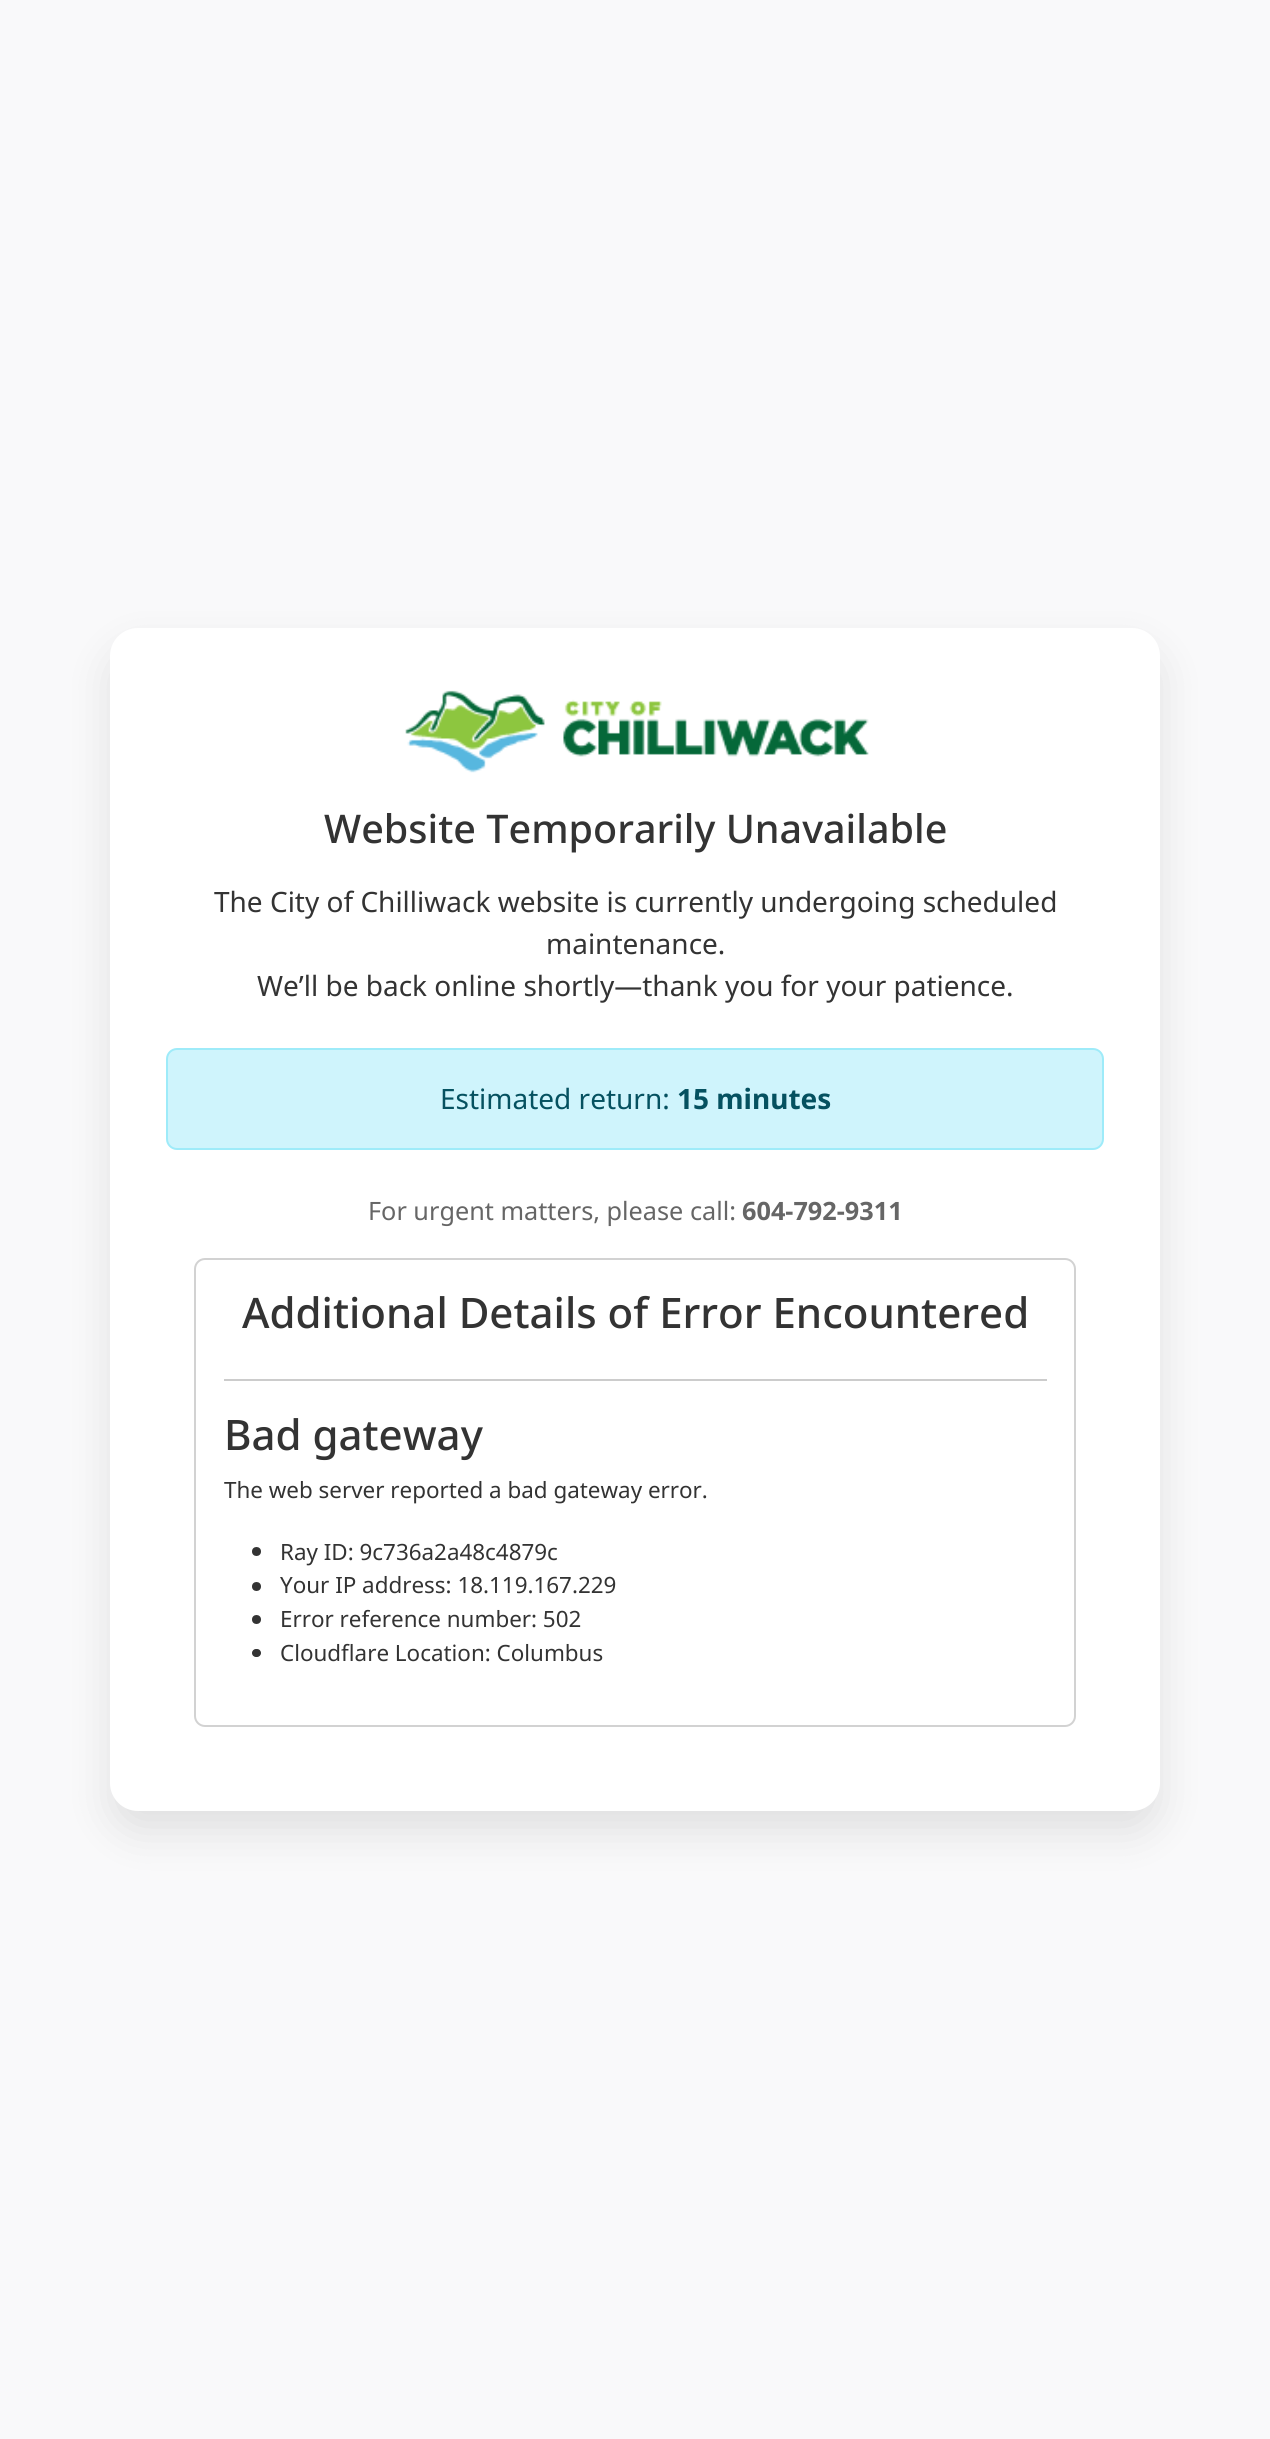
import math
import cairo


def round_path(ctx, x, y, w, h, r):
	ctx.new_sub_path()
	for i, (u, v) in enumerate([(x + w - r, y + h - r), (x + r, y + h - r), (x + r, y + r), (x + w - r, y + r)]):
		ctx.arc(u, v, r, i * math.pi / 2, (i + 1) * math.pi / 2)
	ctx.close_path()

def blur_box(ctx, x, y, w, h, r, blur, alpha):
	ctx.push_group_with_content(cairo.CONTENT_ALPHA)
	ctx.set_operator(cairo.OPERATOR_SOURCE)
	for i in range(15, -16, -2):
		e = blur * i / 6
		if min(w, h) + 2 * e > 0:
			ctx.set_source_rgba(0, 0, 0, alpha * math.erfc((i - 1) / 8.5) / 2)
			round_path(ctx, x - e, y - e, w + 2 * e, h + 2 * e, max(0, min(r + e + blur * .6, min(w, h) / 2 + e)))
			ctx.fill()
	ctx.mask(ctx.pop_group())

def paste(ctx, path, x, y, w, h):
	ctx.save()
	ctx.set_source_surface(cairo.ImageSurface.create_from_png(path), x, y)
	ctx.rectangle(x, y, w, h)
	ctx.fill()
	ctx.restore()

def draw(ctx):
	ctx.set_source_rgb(0.973, 0.976, 0.98)
	ctx.paint()
	ctx.set_source_rgb(0, 0, 0)
	blur_box(ctx, 110, 649, 1050, 1183, 28, 21, 0.1)
	ctx.set_source_rgb(1, 1, 1)
	round_path(ctx, 110, 628, 1050, 1183, 28)
	ctx.fill()
	paste(ctx, 'media/1.png', 405, 690, 464, 83)
	ctx.select_font_face('Noto Sans Medium')
	ctx.set_font_size(39.5)
	ctx.set_source_rgb(0.2, 0.2, 0.2)
	ctx.move_to(324, 843)
	ctx.show_text('Website Temporarily Unavailable')
	ctx.select_font_face('Noto Sans')
	ctx.set_font_size(28)
	for x, y, s in [
		(214, 912, 'The City of Chilliwack website is currently undergoing scheduled'),
		(546, 954, 'maintenance.'),
		(257, 996, 'We’ll be back online shortly—thank you for your patience.'),
	]:
		ctx.move_to(x, y)
		ctx.show_text(s)
	ctx.set_source_rgb(0.812, 0.957, 0.988)
	round_path(ctx, 167, 1049, 936, 100, 10)
	ctx.fill_preserve()
	ctx.set_source_rgb(0.62, 0.918, 0.976)
	ctx.stroke()
	ctx.set_source_rgb(0.02, 0.318, 0.376)
	ctx.move_to(440, 1109)
	ctx.show_text('Estimated return:')
	ctx.select_font_face('Noto Sans', cairo.FONT_SLANT_NORMAL, cairo.FONT_WEIGHT_BOLD)
	ctx.move_to(677, 1109)
	ctx.show_text('15 minutes')
	ctx.select_font_face('Noto Sans')
	ctx.set_font_size(25.25)
	ctx.set_source_rgb(0.4, 0.4, 0.4)
	ctx.move_to(368, 1220)
	ctx.show_text('For urgent matters, please call:')
	ctx.select_font_face('Noto Sans', cairo.FONT_SLANT_NORMAL, cairo.FONT_WEIGHT_BOLD)
	ctx.move_to(742, 1220)
	ctx.show_text('604-792-9311')
	round_path(ctx, 195, 1259, 880, 467, 10)
	ctx.set_source_rgb(0.824, 0.824, 0.824)
	ctx.stroke()
	ctx.select_font_face('Noto Sans Medium')
	ctx.set_font_size(42)
	ctx.set_source_rgb(0.2, 0.2, 0.2)
	ctx.move_to(242, 1328)
	ctx.show_text('Additional Details of Error Encountered')
	ctx.set_source_rgb(0.8, 0.8, 0.8)
	ctx.rectangle(224, 1379, 823, 2)
	ctx.fill()
	ctx.set_source_rgb(0.2, 0.2, 0.2)
	ctx.move_to(224, 1450)
	ctx.show_text('Bad gateway')
	ctx.select_font_face('Noto Sans')
	ctx.set_font_size(22.4)
	ctx.move_to(224, 1498)
	ctx.show_text('The web server reported a bad gateway error.')
	ctx.new_path()
	ctx.arc(256.5, 1551.5, 4.5, 0, 2 * math.pi)
	ctx.fill()
	ctx.move_to(280, 1560)
	ctx.show_text('Ray ID: 9c736a2a48c4879c')
	ctx.new_path()
	ctx.arc(256.5, 1586.5, 4.5, 0, 2 * math.pi)
	ctx.fill()
	ctx.move_to(280, 1593)
	ctx.show_text('Your IP address: 18.119.167.229')
	ctx.new_path()
	ctx.arc(256.5, 1619.5, 4.5, 0, 2 * math.pi)
	ctx.fill()
	ctx.move_to(280, 1627)
	ctx.show_text('Error reference number: 502')
	round_path(ctx, 252, 1649, 9, 8, 4)
	ctx.fill()
	ctx.move_to(280, 1661)
	ctx.show_text('Cloudflare Location: Columbus')


surface = cairo.ImageSurface(cairo.FORMAT_RGB24, 1270, 2439)
ctx = cairo.Context(surface)
options = cairo.FontOptions()
options.set_hint_metrics(cairo.HINT_METRICS_OFF)
options.set_hint_style(cairo.HINT_STYLE_NONE)
ctx.set_font_options(options)
ctx.set_miter_limit(4)
draw(ctx)
surface.write_to_png('image.png')
